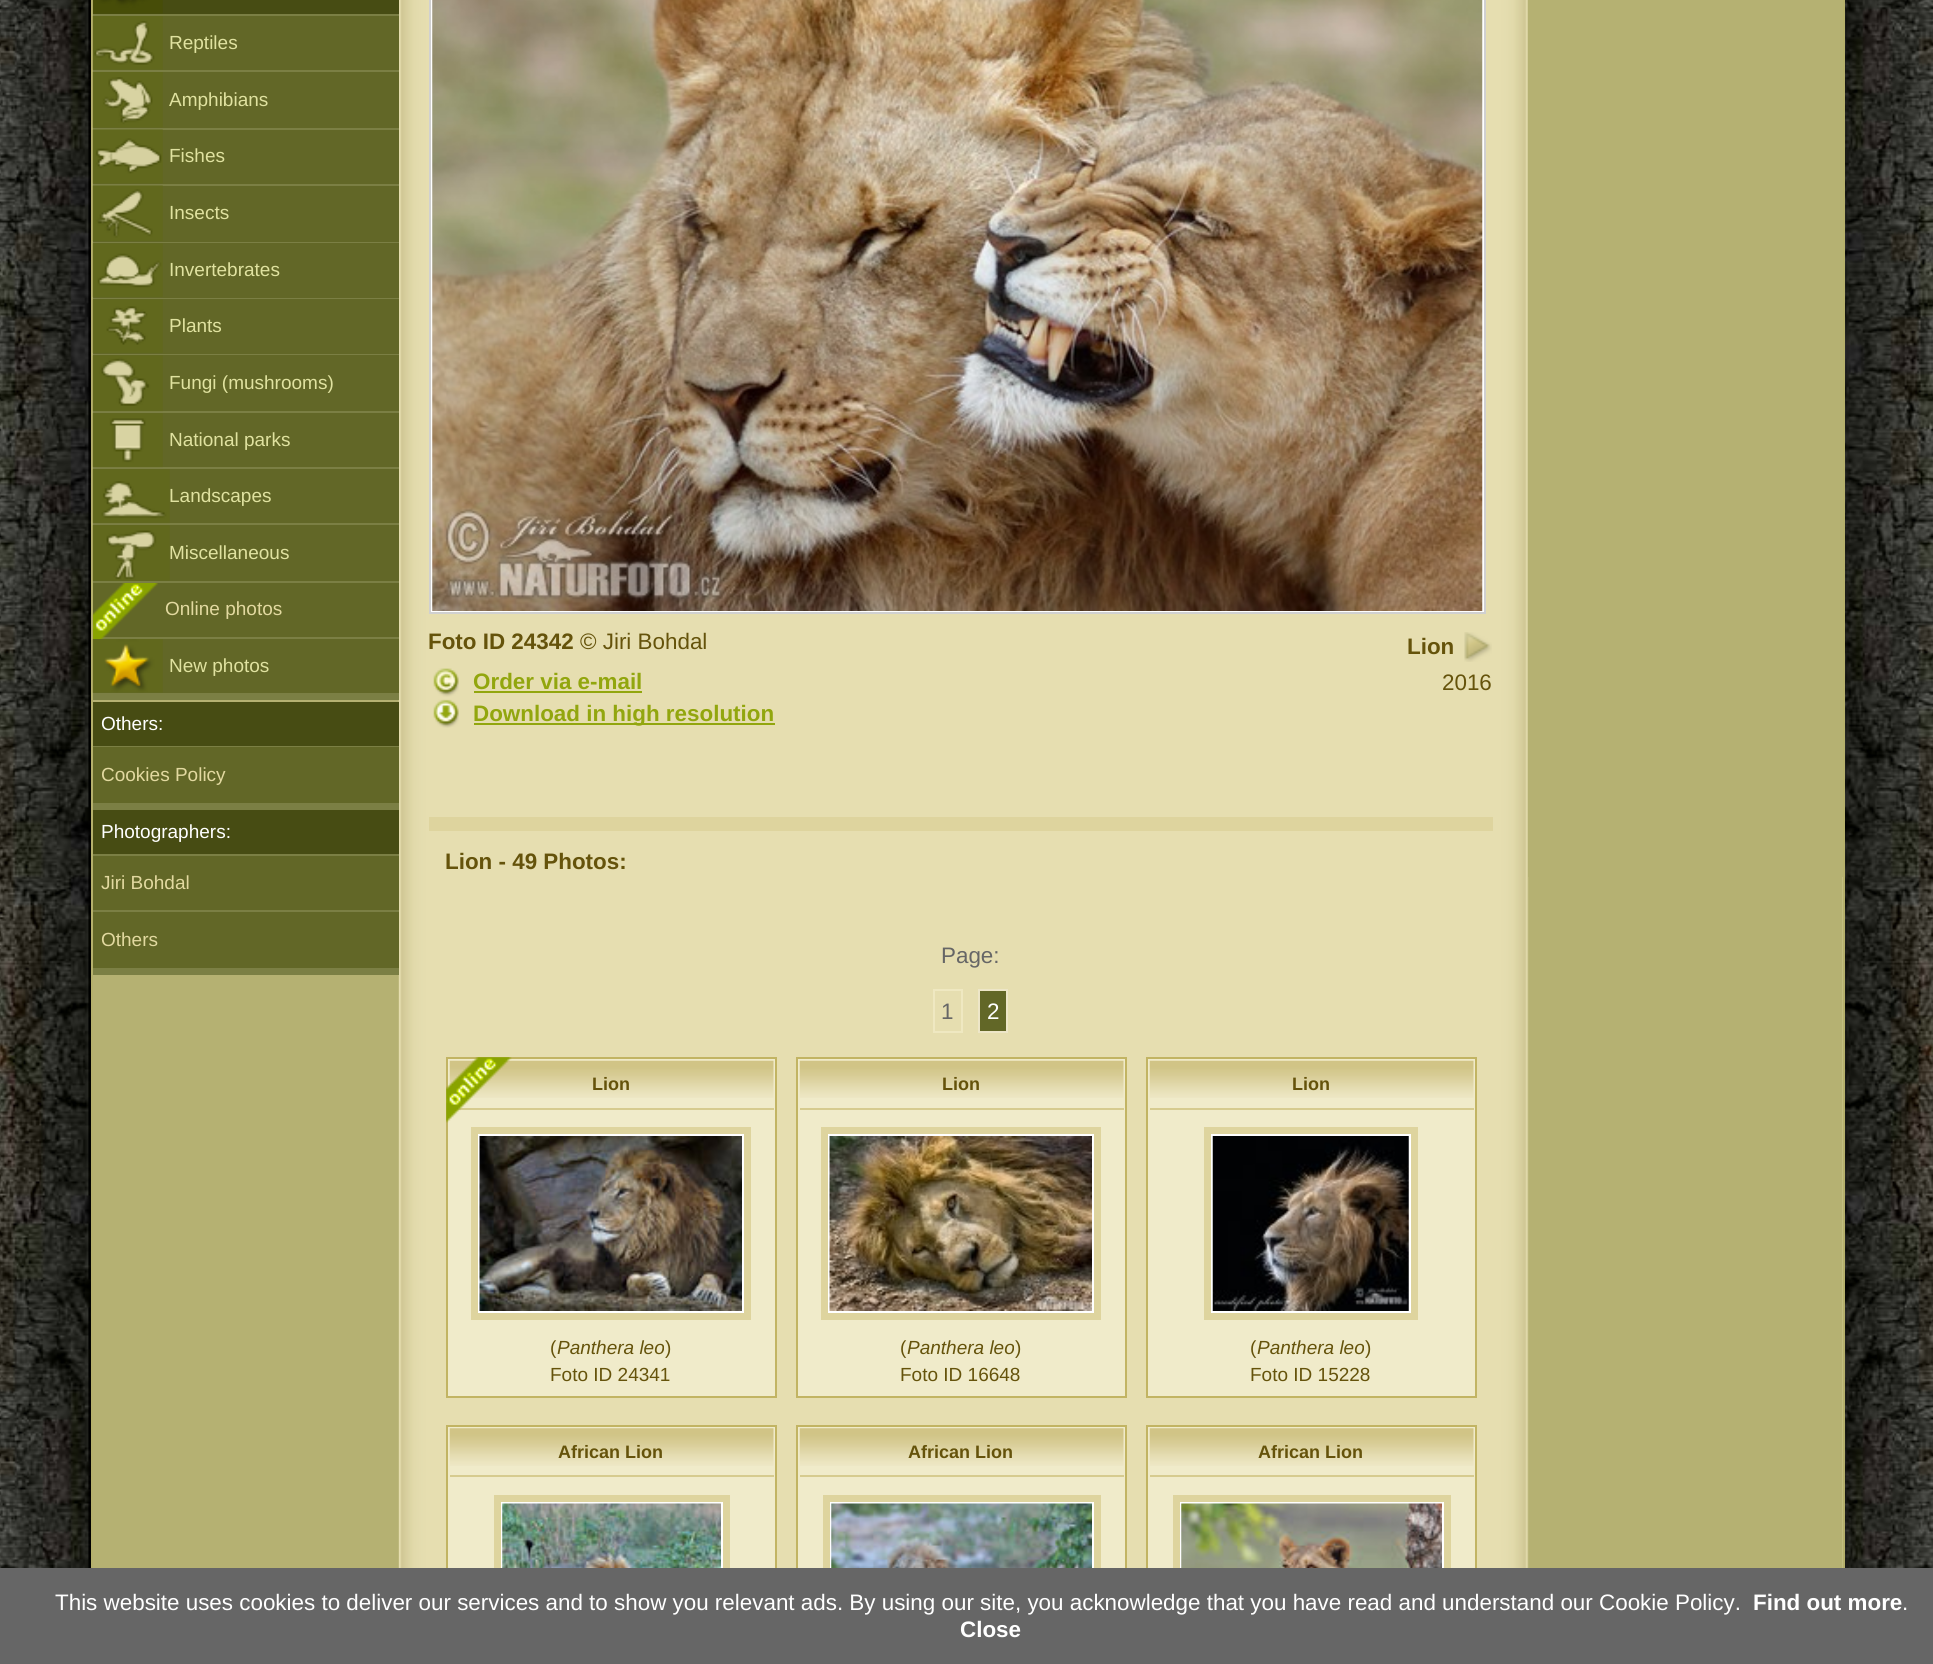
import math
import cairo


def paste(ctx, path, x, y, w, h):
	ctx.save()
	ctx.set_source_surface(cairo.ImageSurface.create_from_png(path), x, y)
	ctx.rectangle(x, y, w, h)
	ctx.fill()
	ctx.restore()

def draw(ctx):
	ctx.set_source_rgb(1, 1, 1)
	ctx.paint()
	paste(ctx, 'media/1.png', 0, 0, 1933, 1568)
	paste(ctx, 'media/2.png', 93, 700, 306, 868)
	ctx.set_source_rgb(0.71, 0.69, 0.424)
	ctx.rectangle(1843, 0, 2, 1568)
	ctx.rectangle(91, 0, 2, 1568)
	ctx.fill()
	ctx.set_source_rgb(0.482, 0.498, 0.267)
	ctx.rectangle(93, 693, 306, 7)
	ctx.rectangle(93, 14, 306, 2)
	ctx.fill()
	ctx.set_source_rgb(0.278, 0.298, 0.078)
	ctx.rectangle(93, 0, 306, 14)
	ctx.fill()
	paste(ctx, 'media/3.png', 92, 0, 71, 14)
	paste(ctx, 'media/4.png', 92, 16, 1, 54)
	ctx.set_source_rgb(0.482, 0.498, 0.267)
	ctx.rectangle(93, 70, 306, 2)
	ctx.fill()
	ctx.set_source_rgb(0.384, 0.404, 0.153)
	ctx.rectangle(93, 16, 306, 54)
	ctx.fill()
	paste(ctx, 'media/5.png', 92, 16, 71, 54)
	ctx.select_font_face('Liberation Sans')
	ctx.set_font_size(19)
	ctx.set_source_rgb(0.878, 0.886, 0.627)
	ctx.move_to(169, 49)
	ctx.show_text('Reptiles')
	paste(ctx, 'media/6.png', 92, 72, 1, 56)
	ctx.set_source_rgb(0.482, 0.498, 0.267)
	ctx.rectangle(93, 128, 306, 2)
	ctx.fill()
	ctx.set_source_rgb(0.384, 0.404, 0.153)
	ctx.rectangle(93, 72, 306, 56)
	ctx.fill()
	paste(ctx, 'media/7.png', 92, 72, 71, 56)
	ctx.set_source_rgb(0.878, 0.886, 0.627)
	ctx.move_to(169, 106)
	ctx.show_text('Amphibians')
	paste(ctx, 'media/8.png', 92, 129, 71, 55)
	ctx.set_source_rgb(0.482, 0.498, 0.267)
	ctx.rectangle(93, 184, 306, 2)
	ctx.fill()
	ctx.set_source_rgb(0.384, 0.404, 0.153)
	ctx.rectangle(93, 130, 306, 54)
	ctx.fill()
	paste(ctx, 'media/9.png', 92, 129, 71, 55)
	ctx.set_source_rgb(0.878, 0.886, 0.627)
	ctx.move_to(169, 162)
	ctx.show_text('Fishes')
	paste(ctx, 'media/10.png', 92, 185, 71, 56)
	ctx.set_source_rgb(0.482, 0.498, 0.267)
	ctx.rectangle(93, 242, 306, 1)
	ctx.fill()
	ctx.set_source_rgb(0.384, 0.404, 0.153)
	ctx.rectangle(93, 186, 306, 56)
	ctx.fill()
	paste(ctx, 'media/11.png', 92, 185, 71, 56)
	ctx.set_source_rgb(0.878, 0.886, 0.627)
	ctx.move_to(169, 219)
	ctx.show_text('Insects')
	paste(ctx, 'media/12.png', 92, 243, 1, 54)
	ctx.set_source_rgb(0.482, 0.498, 0.267)
	ctx.rectangle(93, 298, 306, 1)
	ctx.fill()
	ctx.set_source_rgb(0.384, 0.404, 0.153)
	ctx.rectangle(93, 243, 306, 55)
	ctx.fill()
	paste(ctx, 'media/13.png', 92, 243, 71, 54)
	ctx.set_source_rgb(0.878, 0.886, 0.627)
	ctx.move_to(169, 276)
	ctx.show_text('Invertebrates')
	paste(ctx, 'media/12.png', 92, 299, 1, 54)
	ctx.set_source_rgb(0.482, 0.498, 0.267)
	ctx.rectangle(93, 354, 306, 1)
	ctx.fill()
	ctx.set_source_rgb(0.384, 0.404, 0.153)
	ctx.rectangle(93, 299, 306, 55)
	ctx.fill()
	paste(ctx, 'media/14.png', 92, 299, 71, 54)
	ctx.set_source_rgb(0.878, 0.886, 0.627)
	ctx.move_to(169, 332)
	ctx.show_text('Plants')
	paste(ctx, 'media/15.png', 92, 355, 1, 56)
	ctx.set_source_rgb(0.482, 0.498, 0.267)
	ctx.rectangle(93, 411, 306, 2)
	ctx.fill()
	ctx.set_source_rgb(0.384, 0.404, 0.153)
	ctx.rectangle(93, 355, 306, 56)
	ctx.fill()
	paste(ctx, 'media/16.png', 92, 355, 71, 57)
	ctx.set_source_rgb(0.878, 0.886, 0.627)
	ctx.move_to(169, 389)
	ctx.show_text('Fungi (mushrooms)')
	paste(ctx, 'media/17.png', 92, 413, 1, 54)
	ctx.set_source_rgb(0.482, 0.498, 0.267)
	ctx.rectangle(93, 467, 306, 2)
	ctx.fill()
	ctx.set_source_rgb(0.384, 0.404, 0.153)
	ctx.rectangle(93, 413, 306, 54)
	ctx.fill()
	paste(ctx, 'media/18.png', 92, 413, 71, 55)
	ctx.set_source_rgb(0.878, 0.886, 0.627)
	ctx.move_to(169, 446)
	ctx.show_text('National parks')
	paste(ctx, 'media/17.png', 92, 469, 1, 54)
	ctx.set_source_rgb(0.482, 0.498, 0.267)
	ctx.rectangle(93, 523, 306, 2)
	ctx.fill()
	ctx.set_source_rgb(0.384, 0.404, 0.153)
	ctx.rectangle(93, 469, 306, 54)
	ctx.fill()
	paste(ctx, 'media/19.png', 92, 469, 78, 55)
	ctx.set_source_rgb(0.878, 0.886, 0.627)
	ctx.move_to(169, 502)
	ctx.show_text('Landscapes')
	paste(ctx, 'media/20.png', 92, 525, 1, 56)
	ctx.set_source_rgb(0.482, 0.498, 0.267)
	ctx.rectangle(93, 581, 306, 2)
	ctx.fill()
	ctx.set_source_rgb(0.384, 0.404, 0.153)
	ctx.rectangle(93, 525, 306, 56)
	ctx.fill()
	paste(ctx, 'media/21.png', 92, 525, 78, 56)
	ctx.set_source_rgb(0.878, 0.886, 0.627)
	ctx.move_to(169, 559)
	ctx.show_text('Miscellaneous')
	ctx.set_source_rgb(0.384, 0.404, 0.153)
	ctx.rectangle(93, 583, 306, 54)
	ctx.fill()
	ctx.set_source_rgb(0.482, 0.498, 0.267)
	ctx.rectangle(93, 637, 306, 2)
	ctx.fill()
	paste(ctx, 'media/22.png', 92, 583, 66, 56)
	ctx.set_source_rgb(0.886, 0.851, 0.627)
	ctx.move_to(165, 615)
	ctx.show_text('Online photos')
	paste(ctx, 'media/4.png', 92, 639, 1, 54)
	ctx.set_source_rgb(0.384, 0.404, 0.153)
	ctx.rectangle(93, 639, 306, 54)
	ctx.fill()
	paste(ctx, 'media/23.png', 92, 639, 71, 54)
	ctx.set_source_rgb(0.878, 0.886, 0.627)
	ctx.move_to(169, 672)
	ctx.show_text('New photos')
	ctx.set_source_rgb(0.902, 0.871, 0.69)
	ctx.rectangle(399, 0, 1444, 1568)
	ctx.fill()
	paste(ctx, 'media/24.png', 400, 0, 1443, 1568)
	ctx.set_source_rgb(0.71, 0.694, 0.447)
	ctx.rectangle(1528, 0, 315, 877)
	ctx.fill()
	ctx.set_source_rgb(0.278, 0.298, 0.078)
	ctx.rectangle(93, 702, 306, 44)
	ctx.fill()
	ctx.set_source_rgb(0.482, 0.498, 0.267)
	ctx.rectangle(93, 746, 306, 1)
	ctx.fill()
	ctx.set_source_rgb(1, 1, 1)
	ctx.move_to(101, 730)
	ctx.show_text('Others:')
	ctx.set_source_rgb(0.482, 0.498, 0.267)
	ctx.rectangle(93, 803, 306, 7)
	ctx.fill()
	ctx.set_source_rgb(0.384, 0.404, 0.153)
	ctx.rectangle(93, 747, 306, 56)
	ctx.fill()
	ctx.set_source_rgb(0.886, 0.851, 0.627)
	ctx.move_to(101, 781)
	ctx.show_text('Cookies Policy')
	ctx.set_source_rgb(0.278, 0.298, 0.078)
	ctx.rectangle(93, 810, 306, 44)
	ctx.fill()
	ctx.set_source_rgb(0.482, 0.498, 0.267)
	ctx.rectangle(93, 854, 306, 2)
	ctx.fill()
	ctx.set_source_rgb(1, 1, 1)
	ctx.move_to(101, 838)
	ctx.show_text('Photographers:')
	ctx.set_source_rgb(0.482, 0.498, 0.267)
	ctx.rectangle(93, 968, 306, 7)
	ctx.fill()
	ctx.set_source_rgb(0.384, 0.404, 0.153)
	ctx.rectangle(93, 856, 306, 54)
	ctx.fill()
	ctx.set_source_rgb(0.482, 0.498, 0.267)
	ctx.rectangle(93, 910, 306, 2)
	ctx.fill()
	ctx.set_source_rgb(0.886, 0.851, 0.627)
	ctx.move_to(101, 889)
	ctx.show_text('Jiri Bohdal')
	ctx.set_source_rgb(0.384, 0.404, 0.153)
	ctx.rectangle(93, 912, 306, 56)
	ctx.fill()
	ctx.set_source_rgb(0.886, 0.851, 0.627)
	ctx.move_to(101, 946)
	ctx.show_text('Others')
	ctx.set_source_rgb(1, 1, 1)
	ctx.rectangle(430, -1, 1055, 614)
	ctx.fill_preserve()
	ctx.set_source_rgb(0.816, 0.816, 0.816)
	ctx.stroke()
	paste(ctx, 'media/25.png', 432, 0, 1051, 611)
	ctx.select_font_face('Liberation Sans', cairo.FONT_SLANT_NORMAL, cairo.FONT_WEIGHT_BOLD)
	ctx.set_font_size(22.4)
	ctx.set_source_rgb(0.396, 0.325, 0.043)
	ctx.move_to(428, 649)
	ctx.show_text('Foto ID 24342')
	ctx.select_font_face('Liberation Sans')
	ctx.move_to(580, 649)
	ctx.show_text('© Jiri Bohdal')
	paste(ctx, 'media/26.png', 433, 668, 26, 29)
	ctx.select_font_face('Liberation Sans', cairo.FONT_SLANT_NORMAL, cairo.FONT_WEIGHT_BOLD)
	ctx.set_source_rgb(0.573, 0.651, 0.055)
	ctx.move_to(473, 689)
	ctx.show_text('Order via e-mail')
	ctx.rectangle(474, 691, 168, 2)
	ctx.fill()
	paste(ctx, 'media/27.png', 433, 699, 26, 29)
	ctx.rectangle(474, 723, 301, 2)
	ctx.fill()
	ctx.move_to(473, 721)
	ctx.show_text('Download in high resolution')
	ctx.set_source_rgb(0.396, 0.325, 0.043)
	ctx.move_to(1407, 654)
	ctx.show_text('Lion')
	paste(ctx, 'media/28.png', 1464, 632, 28, 30)
	ctx.select_font_face('Liberation Sans')
	ctx.move_to(1442, 690)
	ctx.show_text('2016')
	ctx.set_source_rgb(0.871, 0.831, 0.62)
	ctx.rectangle(429, 817, 1064, 14)
	ctx.fill()
	ctx.select_font_face('Liberation Sans', cairo.FONT_SLANT_NORMAL, cairo.FONT_WEIGHT_BOLD)
	ctx.set_source_rgb(0.396, 0.325, 0.043)
	ctx.move_to(445, 869)
	ctx.show_text('Lion - 49 Photos:')
	ctx.select_font_face('Liberation Sans')
	ctx.set_source_rgb(0.4, 0.4, 0.4)
	ctx.move_to(941, 963)
	ctx.show_text('Page:')
	ctx.rectangle(934, 990, 28, 42)
	ctx.set_source_rgb(0.937, 0.91, 0.757)
	ctx.stroke()
	ctx.set_source_rgb(0.4, 0.4, 0.4)
	ctx.move_to(941, 1019)
	ctx.show_text('1')
	ctx.set_source_rgb(0.384, 0.404, 0.153)
	ctx.rectangle(979, 990, 28, 42)
	ctx.fill_preserve()
	ctx.set_source_rgb(0.929, 0.902, 0.784)
	ctx.stroke()
	ctx.set_source_rgb(1, 1, 1)
	ctx.move_to(987, 1019)
	ctx.show_text('2')
	ctx.set_source_rgb(0.941, 0.918, 0.792)
	ctx.rectangle(447, 1058, 329, 339)
	ctx.fill_preserve()
	ctx.set_source_rgb(0.761, 0.706, 0.388)
	ctx.stroke()
	paste(ctx, 'media/30.png', 449, 1060, 325, 38)
	ctx.set_source_rgb(0.839, 0.796, 0.561)
	ctx.rectangle(450, 1108, 324, 2)
	ctx.fill()
	paste(ctx, 'media/29.png', 446, 1057, 66, 66)
	ctx.select_font_face('Liberation Sans', cairo.FONT_SLANT_NORMAL, cairo.FONT_WEIGHT_BOLD)
	ctx.set_font_size(18)
	ctx.set_source_rgb(0.396, 0.325, 0.043)
	ctx.move_to(592, 1090)
	ctx.show_text('Lion')
	ctx.set_source_rgb(1, 1, 1)
	ctx.rectangle(474.5, 1130.5, 273, 186)
	ctx.fill_preserve()
	ctx.set_source_rgb(0.871, 0.831, 0.62)
	ctx.set_line_width(7)
	ctx.stroke()
	paste(ctx, 'media/31.png', 479, 1136, 263, 175)
	ctx.select_font_face('Liberation Sans')
	ctx.set_font_size(19)
	ctx.set_source_rgb(0.396, 0.325, 0.043)
	ctx.move_to(550, 1354)
	ctx.show_text('(')
	ctx.select_font_face('Liberation Sans', cairo.FONT_SLANT_ITALIC)
	ctx.move_to(557, 1354)
	ctx.show_text('Panthera leo')
	ctx.select_font_face('Liberation Sans')
	ctx.move_to(665, 1354)
	ctx.show_text(')')
	ctx.move_to(550, 1381)
	ctx.show_text('Foto ID 24341')
	ctx.set_source_rgb(0.941, 0.918, 0.792)
	ctx.rectangle(797, 1058, 329, 339)
	ctx.fill_preserve()
	ctx.set_source_rgb(0.761, 0.706, 0.388)
	ctx.set_line_width(2)
	ctx.stroke()
	paste(ctx, 'media/30.png', 799, 1060, 325, 38)
	ctx.set_source_rgb(0.839, 0.796, 0.561)
	ctx.rectangle(800, 1108, 324, 2)
	ctx.fill()
	ctx.select_font_face('Liberation Sans', cairo.FONT_SLANT_NORMAL, cairo.FONT_WEIGHT_BOLD)
	ctx.set_font_size(18)
	ctx.set_source_rgb(0.396, 0.325, 0.043)
	ctx.move_to(942, 1090)
	ctx.show_text('Lion')
	ctx.set_source_rgb(1, 1, 1)
	ctx.rectangle(824.5, 1130.5, 273, 186)
	ctx.fill_preserve()
	ctx.set_source_rgb(0.871, 0.831, 0.62)
	ctx.set_line_width(7)
	ctx.stroke()
	paste(ctx, 'media/32.png', 829, 1136, 263, 175)
	ctx.select_font_face('Liberation Sans')
	ctx.set_font_size(19)
	ctx.set_source_rgb(0.396, 0.325, 0.043)
	ctx.move_to(900, 1354)
	ctx.show_text('(')
	ctx.select_font_face('Liberation Sans', cairo.FONT_SLANT_ITALIC)
	ctx.move_to(907, 1354)
	ctx.show_text('Panthera leo')
	ctx.select_font_face('Liberation Sans')
	ctx.move_to(1015, 1354)
	ctx.show_text(')')
	ctx.move_to(900, 1381)
	ctx.show_text('Foto ID 16648')
	ctx.set_source_rgb(0.941, 0.918, 0.792)
	ctx.rectangle(1147, 1058, 329, 339)
	ctx.fill_preserve()
	ctx.set_source_rgb(0.761, 0.706, 0.388)
	ctx.set_line_width(2)
	ctx.stroke()
	paste(ctx, 'media/30.png', 1149, 1060, 325, 38)
	ctx.set_source_rgb(0.839, 0.796, 0.561)
	ctx.rectangle(1150, 1108, 324, 2)
	ctx.fill()
	ctx.select_font_face('Liberation Sans', cairo.FONT_SLANT_NORMAL, cairo.FONT_WEIGHT_BOLD)
	ctx.set_font_size(18)
	ctx.set_source_rgb(0.396, 0.325, 0.043)
	ctx.move_to(1292, 1090)
	ctx.show_text('Lion')
	ctx.set_source_rgb(1, 1, 1)
	ctx.rectangle(1207.5, 1130.5, 207, 186)
	ctx.fill_preserve()
	ctx.set_source_rgb(0.871, 0.831, 0.62)
	ctx.set_line_width(7)
	ctx.stroke()
	paste(ctx, 'media/33.png', 1212, 1136, 197, 175)
	ctx.select_font_face('Liberation Sans')
	ctx.set_font_size(19)
	ctx.set_source_rgb(0.396, 0.325, 0.043)
	ctx.move_to(1250, 1354)
	ctx.show_text('(')
	ctx.select_font_face('Liberation Sans', cairo.FONT_SLANT_ITALIC)
	ctx.move_to(1257, 1354)
	ctx.show_text('Panthera leo')
	ctx.select_font_face('Liberation Sans')
	ctx.move_to(1365, 1354)
	ctx.show_text(')')
	ctx.move_to(1250, 1381)
	ctx.show_text('Foto ID 15228')
	ctx.set_source_rgb(0.941, 0.918, 0.792)
	ctx.rectangle(448, 1427, 327, 141)
	ctx.fill()
	ctx.rectangle(447, 1426, 329, 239)
	ctx.set_source_rgb(0.761, 0.706, 0.388)
	ctx.set_line_width(2)
	ctx.stroke()
	paste(ctx, 'media/34.png', 449, 1428, 325, 38)
	ctx.set_source_rgb(0.839, 0.796, 0.561)
	ctx.rectangle(450, 1475, 324, 2)
	ctx.fill()
	ctx.select_font_face('Liberation Sans', cairo.FONT_SLANT_NORMAL, cairo.FONT_WEIGHT_BOLD)
	ctx.set_font_size(18)
	ctx.set_source_rgb(0.396, 0.325, 0.043)
	ctx.move_to(558, 1458)
	ctx.show_text('African Lion')
	ctx.set_source_rgb(1, 1, 1)
	ctx.rectangle(501, 1502, 222, 66)
	ctx.fill()
	ctx.rectangle(497.5, 1498.5, 229, 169)
	ctx.set_source_rgb(0.871, 0.831, 0.62)
	ctx.set_line_width(7)
	ctx.stroke()
	paste(ctx, 'media/35.png', 502, 1503, 219, 65)
	ctx.set_source_rgb(0.941, 0.918, 0.792)
	ctx.rectangle(798, 1427, 327, 141)
	ctx.fill()
	ctx.rectangle(797, 1426, 329, 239)
	ctx.set_source_rgb(0.761, 0.706, 0.388)
	ctx.set_line_width(2)
	ctx.stroke()
	paste(ctx, 'media/34.png', 799, 1428, 325, 38)
	ctx.set_source_rgb(0.839, 0.796, 0.561)
	ctx.rectangle(800, 1475, 324, 2)
	ctx.fill()
	ctx.set_source_rgb(0.396, 0.325, 0.043)
	ctx.move_to(908, 1458)
	ctx.show_text('African Lion')
	ctx.set_source_rgb(1, 1, 1)
	ctx.rectangle(830, 1502, 264, 66)
	ctx.fill()
	ctx.rectangle(826.5, 1498.5, 271, 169)
	ctx.set_source_rgb(0.871, 0.831, 0.62)
	ctx.set_line_width(7)
	ctx.stroke()
	paste(ctx, 'media/36.png', 831, 1503, 261, 65)
	ctx.set_source_rgb(0.941, 0.918, 0.792)
	ctx.rectangle(1148, 1427, 327, 141)
	ctx.fill()
	ctx.rectangle(1147, 1426, 329, 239)
	ctx.set_source_rgb(0.761, 0.706, 0.388)
	ctx.set_line_width(2)
	ctx.stroke()
	paste(ctx, 'media/34.png', 1149, 1428, 325, 38)
	ctx.set_source_rgb(0.839, 0.796, 0.561)
	ctx.rectangle(1150, 1475, 324, 2)
	ctx.fill()
	ctx.set_source_rgb(0.396, 0.325, 0.043)
	ctx.move_to(1258, 1458)
	ctx.show_text('African Lion')
	ctx.set_source_rgb(1, 1, 1)
	ctx.rectangle(1180, 1502, 264, 66)
	ctx.fill()
	ctx.rectangle(1176.5, 1498.5, 271, 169)
	ctx.set_source_rgb(0.871, 0.831, 0.62)
	ctx.set_line_width(7)
	ctx.stroke()
	paste(ctx, 'media/37.png', 1181, 1503, 261, 65)
	ctx.set_source_rgb(0.4, 0.4, 0.4)
	ctx.rectangle(0, 1568, 1933, 96)
	ctx.fill()
	ctx.select_font_face('Liberation Sans')
	ctx.set_font_size(22.4)
	ctx.set_source_rgb(1, 1, 1)
	ctx.move_to(55, 1610)
	ctx.show_text('This website uses cookies to deliver our services and to show you relevant ads. By using our site, you acknowledge that you have read and understand our Cookie Policy.')
	ctx.select_font_face('Liberation Sans', cairo.FONT_SLANT_NORMAL, cairo.FONT_WEIGHT_BOLD)
	ctx.move_to(1753, 1610)
	ctx.show_text('Find out more')
	ctx.select_font_face('Liberation Sans')
	ctx.move_to(1902, 1610)
	ctx.show_text('.')
	ctx.select_font_face('Liberation Sans', cairo.FONT_SLANT_NORMAL, cairo.FONT_WEIGHT_BOLD)
	ctx.move_to(960, 1637)
	ctx.show_text('Close')


surface = cairo.ImageSurface(cairo.FORMAT_RGB24, 1933, 1664)
ctx = cairo.Context(surface)
options = cairo.FontOptions()
options.set_hint_metrics(cairo.HINT_METRICS_OFF)
options.set_hint_style(cairo.HINT_STYLE_NONE)
ctx.set_font_options(options)
ctx.set_miter_limit(4)
draw(ctx)
surface.write_to_png('image.png')
